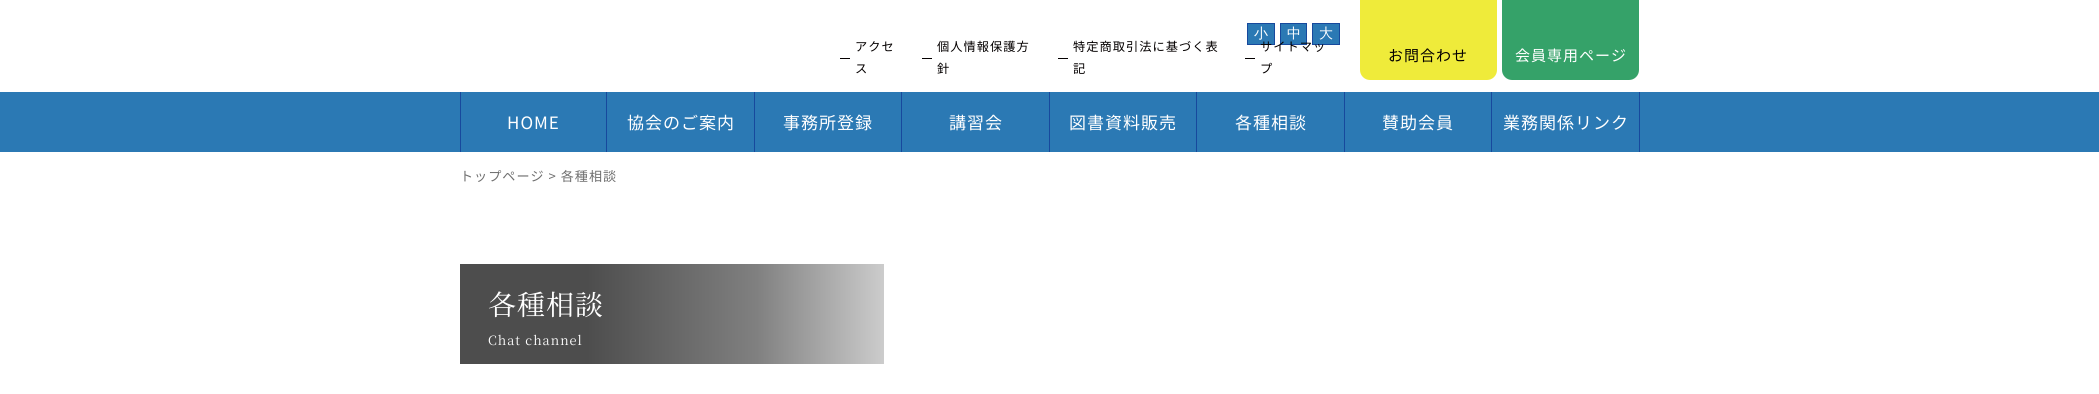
import math
import cairo


def write_spaced(ctx, x, y, s, letter, word):
	ctx.move_to(x, y)
	for ch in s:
		ctx.show_text(ch)
		ctx.rel_move_to(letter + word * (ch == ' '), 0)

def draw(ctx):
	ctx.set_source_rgb(1, 1, 1)
	ctx.paint()
	ctx.set_source_rgb(0.169, 0.475, 0.706)
	ctx.rectangle(1247.5, 23.5, 27, 21)
	ctx.fill_preserve()
	ctx.set_source_rgb(0.09, 0.286, 0.616)
	ctx.set_line_width(1)
	ctx.stroke()
	ctx.select_font_face('WenQuanYi Zen Hei Medium')
	ctx.set_font_size(14)
	ctx.set_source_rgb(1, 1, 1)
	ctx.move_to(1254, 38)
	ctx.show_text('小')
	ctx.set_source_rgb(0.169, 0.475, 0.706)
	ctx.rectangle(1280.5, 23.5, 26, 21)
	ctx.fill_preserve()
	ctx.set_source_rgb(0.09, 0.286, 0.616)
	ctx.stroke()
	ctx.set_source_rgb(1, 1, 1)
	ctx.move_to(1287, 38)
	ctx.show_text('中')
	ctx.set_source_rgb(0.169, 0.475, 0.706)
	ctx.rectangle(1312.5, 23.5, 27, 21)
	ctx.fill_preserve()
	ctx.set_source_rgb(0.09, 0.286, 0.616)
	ctx.stroke()
	ctx.set_source_rgb(1, 1, 1)
	ctx.move_to(1319, 38)
	ctx.show_text('大')
	ctx.select_font_face('Noto Sans JP Thin')
	ctx.set_font_size(12.25)
	ctx.set_source_rgb(0.016, 0, 0)
	write_spaced(ctx, 855, 51, 'アクセ', 1, 0)
	ctx.rectangle(840, 58, 10, 1)
	ctx.fill()
	write_spaced(ctx, 855, 73, 'ス', 1, 0)
	write_spaced(ctx, 937, 51, '個人情報保護方', 1, 0)
	ctx.rectangle(922, 58, 10, 1)
	ctx.fill()
	write_spaced(ctx, 937, 73, '針', 1, 0)
	write_spaced(ctx, 1073, 51, '特定商取引法に基づく表', 1, 0)
	ctx.rectangle(1058, 58, 10, 1)
	ctx.fill()
	write_spaced(ctx, 1073, 73, '記', 1, 0)
	write_spaced(ctx, 1260, 51, 'サイトマッ', 1, 0)
	ctx.rectangle(1245, 58, 10, 1)
	ctx.fill()
	write_spaced(ctx, 1260, 73, 'プ', 1, 0)
	ctx.set_source_rgb(0.937, 0.918, 0.227)
	ctx.new_path()
	ctx.move_to(1360, 0)
	ctx.line_to(1497, 0)
	ctx.line_to(1497, 70)
	ctx.curve_to(1497, 75.5, 1492.5, 80, 1487, 80)
	ctx.line_to(1370, 80)
	ctx.curve_to(1364.5, 80, 1360, 75.5, 1360, 70)
	ctx.close_path()
	ctx.fill()
	ctx.set_font_size(15)
	ctx.set_source_rgb(0.016, 0, 0)
	write_spaced(ctx, 1388, 61, 'お問合わせ', 1, 0)
	ctx.set_source_rgb(0.208, 0.635, 0.412)
	ctx.new_path()
	ctx.move_to(1502, 0)
	ctx.line_to(1639, 0)
	ctx.line_to(1639, 70)
	ctx.curve_to(1639, 75.5, 1634.5, 80, 1629, 80)
	ctx.line_to(1512, 80)
	ctx.curve_to(1506.5, 80, 1502, 75.5, 1502, 70)
	ctx.close_path()
	ctx.fill()
	ctx.set_source_rgb(1, 1, 1)
	write_spaced(ctx, 1515, 61, '会員専用ページ', 1, 0)
	ctx.set_source_rgb(0.169, 0.475, 0.706)
	ctx.rectangle(0, 92, 2099, 60)
	ctx.fill()
	ctx.set_source_rgb(0.09, 0.286, 0.616)
	ctx.rectangle(606, 92, 1, 60)
	ctx.rectangle(460, 92, 1, 60)
	ctx.fill()
	ctx.set_font_size(17)
	ctx.set_source_rgb(1, 1, 1)
	write_spaced(ctx, 507, 129, 'HOME', 1, 0)
	ctx.set_source_rgb(0.09, 0.286, 0.616)
	ctx.rectangle(754, 92, 1, 60)
	ctx.fill()
	ctx.set_source_rgb(1, 1, 1)
	write_spaced(ctx, 627, 129, '協会のご案内', 1, 0)
	ctx.set_source_rgb(0.09, 0.286, 0.616)
	ctx.rectangle(901, 92, 1, 60)
	ctx.fill()
	ctx.set_source_rgb(1, 1, 1)
	write_spaced(ctx, 783, 129, '事務所登録', 1, 0)
	ctx.set_source_rgb(0.09, 0.286, 0.616)
	ctx.rectangle(1049, 92, 1, 60)
	ctx.fill()
	ctx.set_source_rgb(1, 1, 1)
	write_spaced(ctx, 949, 129, '講習会', 1, 0)
	ctx.set_source_rgb(0.09, 0.286, 0.616)
	ctx.rectangle(1196, 92, 1, 60)
	ctx.fill()
	ctx.set_source_rgb(1, 1, 1)
	write_spaced(ctx, 1069, 129, '図書資料販売', 1, 0)
	ctx.set_source_rgb(0.09, 0.286, 0.616)
	ctx.rectangle(1344, 92, 1, 60)
	ctx.fill()
	ctx.set_source_rgb(1, 1, 1)
	write_spaced(ctx, 1235, 129, '各種相談', 1, 0)
	ctx.set_source_rgb(0.09, 0.286, 0.616)
	ctx.rectangle(1491, 92, 1, 60)
	ctx.fill()
	ctx.set_source_rgb(1, 1, 1)
	write_spaced(ctx, 1382, 129, '賛助会員', 1, 0)
	ctx.set_source_rgb(0.09, 0.286, 0.616)
	ctx.rectangle(1639, 92, 1, 60)
	ctx.fill()
	ctx.set_source_rgb(1, 1, 1)
	write_spaced(ctx, 1503, 129, '業務関係リンク', 1, 0)
	ctx.set_font_size(13.1)
	ctx.set_source_rgb(0.435, 0.435, 0.435)
	write_spaced(ctx, 460, 181, 'トップページ > 各種相談', 1, 0)
	gradient = cairo.LinearGradient(460, 314, 884, 314)
	gradient.add_color_stop_rgba(0.3, 0.302, 0.302, 0.302, 1)
	gradient.add_color_stop_rgba(0.7, 0.502, 0.502, 0.502, 1)
	gradient.add_color_stop_rgba(1, 0.8, 0.8, 0.8, 1)
	ctx.set_source(gradient)
	ctx.rectangle(460, 264, 424, 100)
	ctx.fill()
	ctx.select_font_face('Noto Serif JP ExtraLight')
	ctx.set_font_size(28)
	ctx.set_source_rgb(1, 1, 1)
	write_spaced(ctx, 488, 315, '各種相談', 1, 0)
	ctx.set_font_size(12.75)
	write_spaced(ctx, 488, 345, 'Chat channel', 1, 0)


surface = cairo.ImageSurface(cairo.FORMAT_RGB24, 2099, 394)
ctx = cairo.Context(surface)
options = cairo.FontOptions()
options.set_hint_metrics(cairo.HINT_METRICS_OFF)
options.set_hint_style(cairo.HINT_STYLE_NONE)
ctx.set_font_options(options)
ctx.set_miter_limit(4)
draw(ctx)
surface.write_to_png('image.png')
